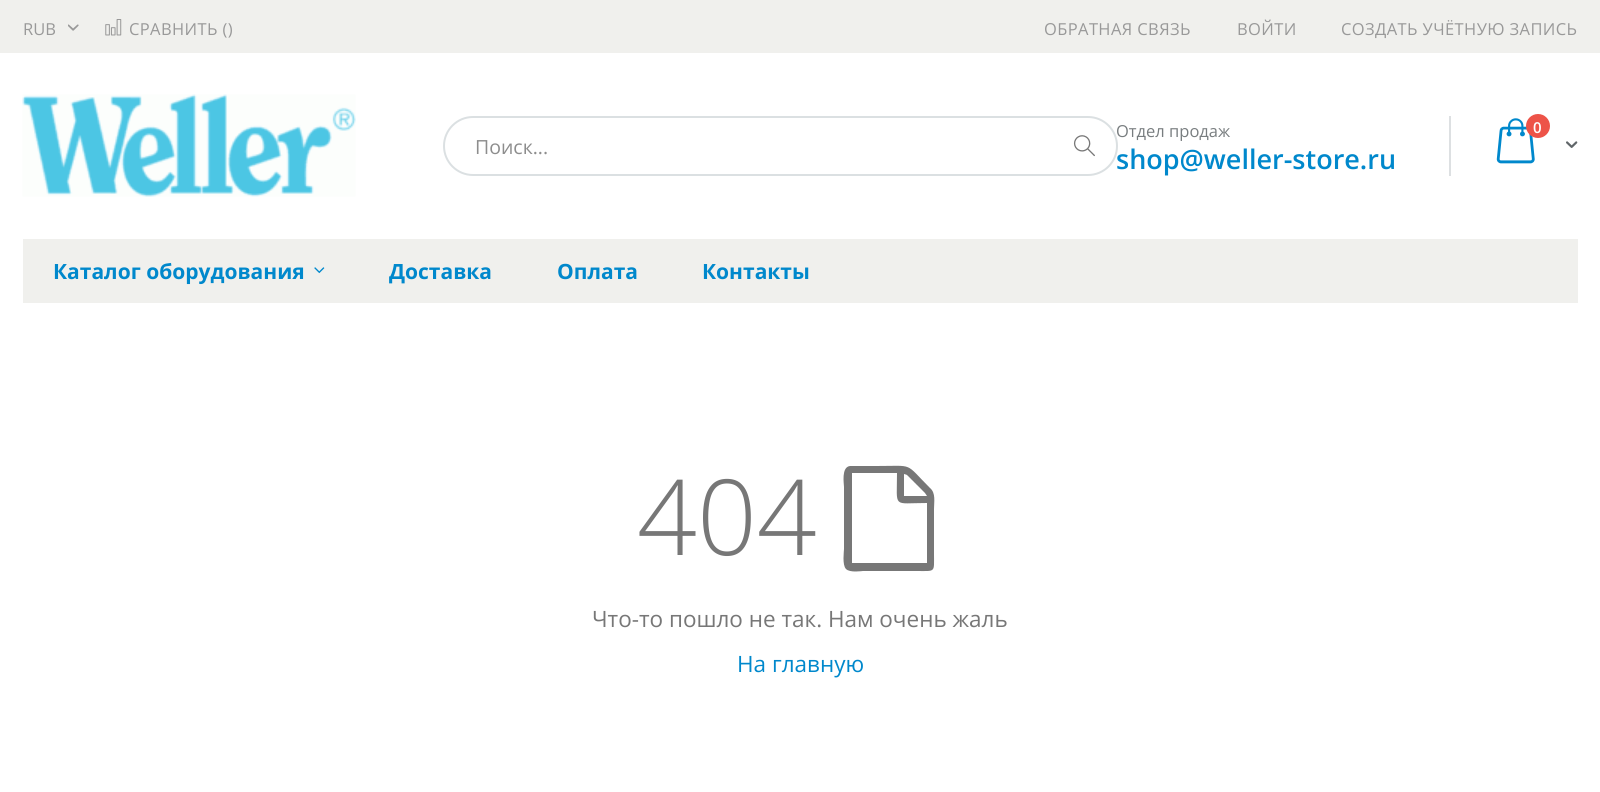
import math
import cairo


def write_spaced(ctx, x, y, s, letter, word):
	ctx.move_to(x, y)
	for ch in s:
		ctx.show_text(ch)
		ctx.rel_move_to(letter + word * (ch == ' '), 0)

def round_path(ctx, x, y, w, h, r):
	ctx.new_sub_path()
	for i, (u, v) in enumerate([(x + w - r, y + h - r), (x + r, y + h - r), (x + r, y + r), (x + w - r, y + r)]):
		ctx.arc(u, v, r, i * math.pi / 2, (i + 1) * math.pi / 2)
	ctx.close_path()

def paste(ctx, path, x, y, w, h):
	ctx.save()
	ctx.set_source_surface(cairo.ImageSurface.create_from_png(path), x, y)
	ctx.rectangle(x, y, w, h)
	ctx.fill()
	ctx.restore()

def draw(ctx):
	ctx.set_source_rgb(1, 1, 1)
	ctx.paint()
	ctx.set_source_rgb(0.941, 0.941, 0.929)
	ctx.rectangle(0, 0, 1600, 53)
	ctx.fill()
	ctx.select_font_face('Open Sans')
	ctx.set_font_size(16.5)
	ctx.set_source_rgb(0.6, 0.6, 0.6)
	ctx.move_to(23, 35)
	ctx.show_text('RUB')
	paste(ctx, 'media/1.png', 68, 24, 11, 7)
	paste(ctx, 'media/2.png', 105, 19, 17, 17)
	for x, y, s in [
		(129, 35, 'СРАВНИТЬ ()'),
		(1044, 35, 'ОБРАТНАЯ СВЯЗЬ'),
		(1237, 35, 'ВОЙТИ'),
		(1341, 35, 'СОЗДАТЬ УЧЁТНУЮ ЗАПИСЬ'),
	]:
		write_spaced(ctx, x, y, s, 0.4, 0)
	paste(ctx, 'media/3.png', 22, 94, 334, 103)
	ctx.set_source_rgb(0.471, 0.49, 0.498)
	ctx.move_to(1116, 137)
	ctx.show_text('Отдел продаж')
	ctx.select_font_face('Open Sans SemiBold')
	ctx.set_font_size(27)
	ctx.set_source_rgb(0, 0.533, 0.8)
	ctx.move_to(1116, 169)
	ctx.show_text('shop@weller-store.ru')
	round_path(ctx, 444, 117, 673, 58, 29)
	ctx.set_source_rgb(0.859, 0.878, 0.886)
	ctx.stroke()
	ctx.select_font_face('Open Sans')
	ctx.set_font_size(19.5)
	ctx.set_source_rgb(0.553, 0.553, 0.553)
	ctx.move_to(475, 154)
	ctx.show_text('Поиск...')
	paste(ctx, 'media/4.png', 1073, 135, 22, 22)
	ctx.set_source_rgb(0.867, 0.878, 0.886)
	ctx.rectangle(1449, 116, 2, 60)
	ctx.fill()
	paste(ctx, 'media/5.png', 1496, 118, 39, 46)
	ctx.set_source_rgb(0.929, 0.325, 0.282)
	ctx.arc(1538, 126, 12, 0, 2 * math.pi)
	ctx.fill()
	ctx.select_font_face('Open Sans SemiBold')
	ctx.set_font_size(15)
	ctx.set_source_rgb(1, 1, 1)
	ctx.move_to(1533, 133)
	ctx.show_text('0')
	paste(ctx, 'media/6.png', 1566, 141, 12, 7)
	ctx.set_source_rgb(0.941, 0.941, 0.929)
	ctx.rectangle(23, 239, 1555, 64)
	ctx.fill()
	ctx.select_font_face('Open Sans', cairo.FONT_SLANT_NORMAL, cairo.FONT_WEIGHT_BOLD)
	ctx.set_font_size(21)
	ctx.set_source_rgb(0, 0.533, 0.8)
	ctx.move_to(53, 279)
	ctx.show_text('Каталог оборудования')
	paste(ctx, 'media/7.png', 314, 267, 11, 7)
	for x, y, s in [
		(389, 279, 'Доставка'),
		(557, 279, 'Оплата'),
		(702, 279, 'Контакты'),
	]:
		ctx.move_to(x, y)
		ctx.show_text(s)
	ctx.select_font_face('Open Sans Light')
	ctx.set_font_size(105)
	ctx.set_source_rgb(0.467, 0.467, 0.467)
	ctx.move_to(637, 555)
	ctx.show_text('404')
	ctx.new_path()
	ctx.move_to(930, 488)
	ctx.curve_to(936, 493, 934, 502, 934, 509)
	ctx.line_to(934, 554)
	ctx.curve_to(934, 573, 936, 571, 916, 571)
	ctx.line_to(863, 571)
	ctx.curve_to(862, 571, 850, 573, 846, 569)
	ctx.curve_to(842, 565, 844, 551, 844, 549)
	ctx.line_to(844, 487)
	ctx.curve_to(844, 484, 841, 467, 850, 466)
	ctx.line_to(876, 466)
	ctx.curve_to(915, 466, 904, 462, 930, 488)
	ctx.close_path()
	ctx.move_to(904, 474)
	ctx.line_to(904, 496)
	ctx.line_to(927, 496)
	ctx.line_to(925, 493)
	ctx.line_to(907, 475)
	ctx.close_path()
	ctx.move_to(927, 563)
	ctx.line_to(927, 503)
	ctx.curve_to(892, 503, 897, 509, 897, 473)
	ctx.line_to(852, 473)
	ctx.line_to(852, 563)
	ctx.close_path()
	ctx.fill()
	ctx.select_font_face('Open Sans')
	ctx.set_font_size(22.5)
	ctx.move_to(592, 627)
	ctx.show_text('Что-то пошло не так. Нам очень жаль')
	ctx.set_source_rgb(0, 0.533, 0.8)
	ctx.move_to(737, 672)
	ctx.show_text('На главную')


surface = cairo.ImageSurface(cairo.FORMAT_RGB24, 1600, 792)
ctx = cairo.Context(surface)
options = cairo.FontOptions()
options.set_hint_metrics(cairo.HINT_METRICS_OFF)
options.set_hint_style(cairo.HINT_STYLE_NONE)
ctx.set_font_options(options)
ctx.set_miter_limit(4)
draw(ctx)
surface.write_to_png('image.png')
